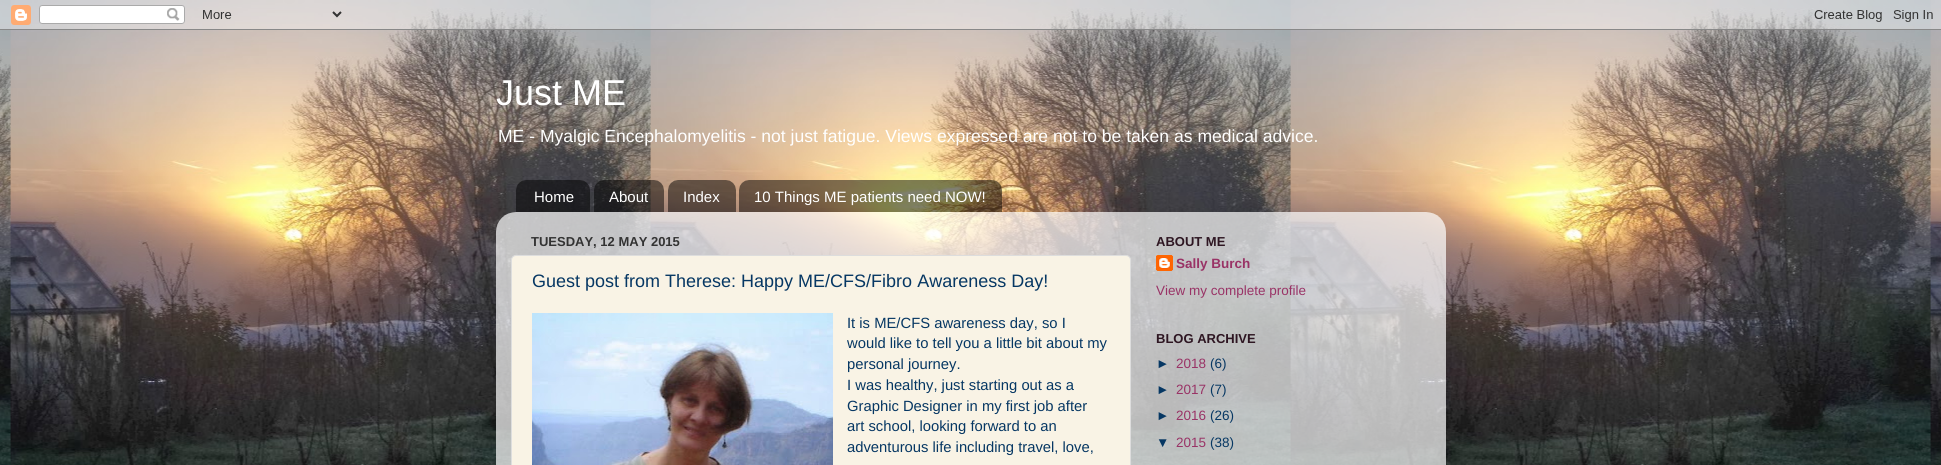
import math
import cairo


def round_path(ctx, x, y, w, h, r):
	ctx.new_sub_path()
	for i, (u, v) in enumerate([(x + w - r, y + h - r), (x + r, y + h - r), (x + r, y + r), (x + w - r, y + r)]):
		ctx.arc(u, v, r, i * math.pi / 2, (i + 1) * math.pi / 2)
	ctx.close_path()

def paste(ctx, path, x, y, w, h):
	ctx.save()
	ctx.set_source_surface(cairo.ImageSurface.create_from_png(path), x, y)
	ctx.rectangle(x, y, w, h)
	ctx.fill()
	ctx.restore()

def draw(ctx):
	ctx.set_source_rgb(1, 1, 1)
	ctx.paint()
	paste(ctx, 'media/1.png', 0, 0, 1941, 465)
	paste(ctx, 'media/2.png', 0, 0, 1941, 30)
	ctx.select_font_face('Liberation Sans')
	ctx.set_font_size(36)
	ctx.set_source_rgb(1, 1, 1)
	ctx.move_to(496, 105)
	ctx.show_text('Just ME')
	ctx.set_font_size(17.55)
	ctx.move_to(498, 142)
	ctx.show_text('ME - Myalgic Encephalomyelitis - not just fatigue. Views expressed are not to be taken as medical advice.')
	paste(ctx, 'media/3.png', 516, 180, 74, 32)
	ctx.set_font_size(15)
	ctx.move_to(534, 202)
	ctx.show_text('Home')
	paste(ctx, 'media/4.png', 594, 180, 70, 32)
	ctx.move_to(609, 202)
	ctx.show_text('About')
	paste(ctx, 'media/5.png', 668, 180, 68, 32)
	ctx.move_to(683, 202)
	ctx.show_text('Index')
	paste(ctx, 'media/6.png', 739, 180, 263, 32)
	ctx.move_to(754, 202)
	ctx.show_text('10 Things ME patients need NOW!')
	paste(ctx, 'media/7.png', 496, 212, 950, 253)
	ctx.select_font_face('Liberation Sans', cairo.FONT_SLANT_NORMAL, cairo.FONT_WEIGHT_BOLD)
	ctx.set_font_size(13)
	ctx.set_source_rgb(0.2, 0.2, 0.2)
	ctx.move_to(531, 246)
	ctx.show_text('TUESDAY, 12 MAY 2015')
	ctx.set_source_rgb(0.973, 0.953, 0.898)
	round_path(ctx, 511.5, 255.5, 619, 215, 4.5)
	ctx.fill_preserve()
	ctx.set_source_rgb(0.867, 0.867, 0.867)
	ctx.set_line_width(1)
	ctx.stroke()
	ctx.select_font_face('Liberation Sans')
	ctx.set_font_size(18)
	ctx.set_source_rgb(0.027, 0.216, 0.388)
	ctx.move_to(532, 287)
	ctx.show_text('Guest post from Therese: Happy ME/CFS/Fibro Awareness Day!')
	paste(ctx, 'media/8.png', 532, 313, 301, 152)
	ctx.set_font_size(14.8)
	for x, y, s in [
		(847, 328, 'It is ME/CFS awareness day, so I'),
		(847, 348, 'would like to tell you a little bit about my'),
		(847, 369, 'personal journey.'),
		(847, 390, 'I was healthy, just starting out as a'),
		(847, 411, 'Graphic Designer in my first job after'),
		(847, 431, 'art school, looking forward to an'),
		(847, 452, 'adventurous life including travel, love,'),
	]:
		ctx.move_to(x, y)
		ctx.show_text(s)
	ctx.select_font_face('Liberation Sans', cairo.FONT_SLANT_NORMAL, cairo.FONT_WEIGHT_BOLD)
	ctx.set_font_size(13)
	ctx.set_source_rgb(0.18, 0.086, 0.133)
	ctx.move_to(1156, 246)
	ctx.show_text('ABOUT ME')
	paste(ctx, 'media/9.png', 1156, 255, 17, 16)
	ctx.set_font_size(13.5)
	ctx.set_source_rgb(0.6, 0.2, 0.4)
	ctx.move_to(1176, 268)
	ctx.show_text('Sally Burch')
	ctx.select_font_face('Liberation Sans')
	ctx.move_to(1156, 295)
	ctx.show_text('View my complete profile')
	ctx.select_font_face('Liberation Sans', cairo.FONT_SLANT_NORMAL, cairo.FONT_WEIGHT_BOLD)
	ctx.set_font_size(13)
	ctx.set_source_rgb(0.18, 0.086, 0.133)
	ctx.move_to(1156, 343)
	ctx.show_text('BLOG ARCHIVE')
	ctx.select_font_face('Liberation Sans')
	ctx.set_font_size(13.5)
	ctx.set_source_rgb(0.027, 0.216, 0.388)
	ctx.move_to(1156, 368)
	ctx.show_text('►')
	ctx.set_source_rgb(0.6, 0.2, 0.4)
	ctx.move_to(1176, 368)
	ctx.show_text('2018')
	ctx.set_source_rgb(0.027, 0.216, 0.388)
	ctx.move_to(1210, 368)
	ctx.show_text('(6)')
	ctx.move_to(1156, 394)
	ctx.show_text('►')
	ctx.set_source_rgb(0.6, 0.2, 0.4)
	ctx.move_to(1176, 394)
	ctx.show_text('2017')
	ctx.set_source_rgb(0.027, 0.216, 0.388)
	ctx.move_to(1210, 394)
	ctx.show_text('(7)')
	ctx.move_to(1156, 420)
	ctx.show_text('►')
	ctx.set_source_rgb(0.6, 0.2, 0.4)
	ctx.move_to(1176, 420)
	ctx.show_text('2016')
	ctx.set_source_rgb(0.027, 0.216, 0.388)
	ctx.move_to(1210, 420)
	ctx.show_text('(26)')
	ctx.move_to(1156, 447)
	ctx.show_text('▼')
	ctx.set_source_rgb(0.6, 0.2, 0.4)
	ctx.move_to(1176, 447)
	ctx.show_text('2015')
	ctx.set_source_rgb(0.027, 0.216, 0.388)
	ctx.move_to(1210, 447)
	ctx.show_text('(38)')


surface = cairo.ImageSurface(cairo.FORMAT_RGB24, 1941, 465)
ctx = cairo.Context(surface)
options = cairo.FontOptions()
options.set_hint_metrics(cairo.HINT_METRICS_OFF)
options.set_hint_style(cairo.HINT_STYLE_NONE)
ctx.set_font_options(options)
ctx.set_miter_limit(4)
draw(ctx)
surface.write_to_png('image.png')
